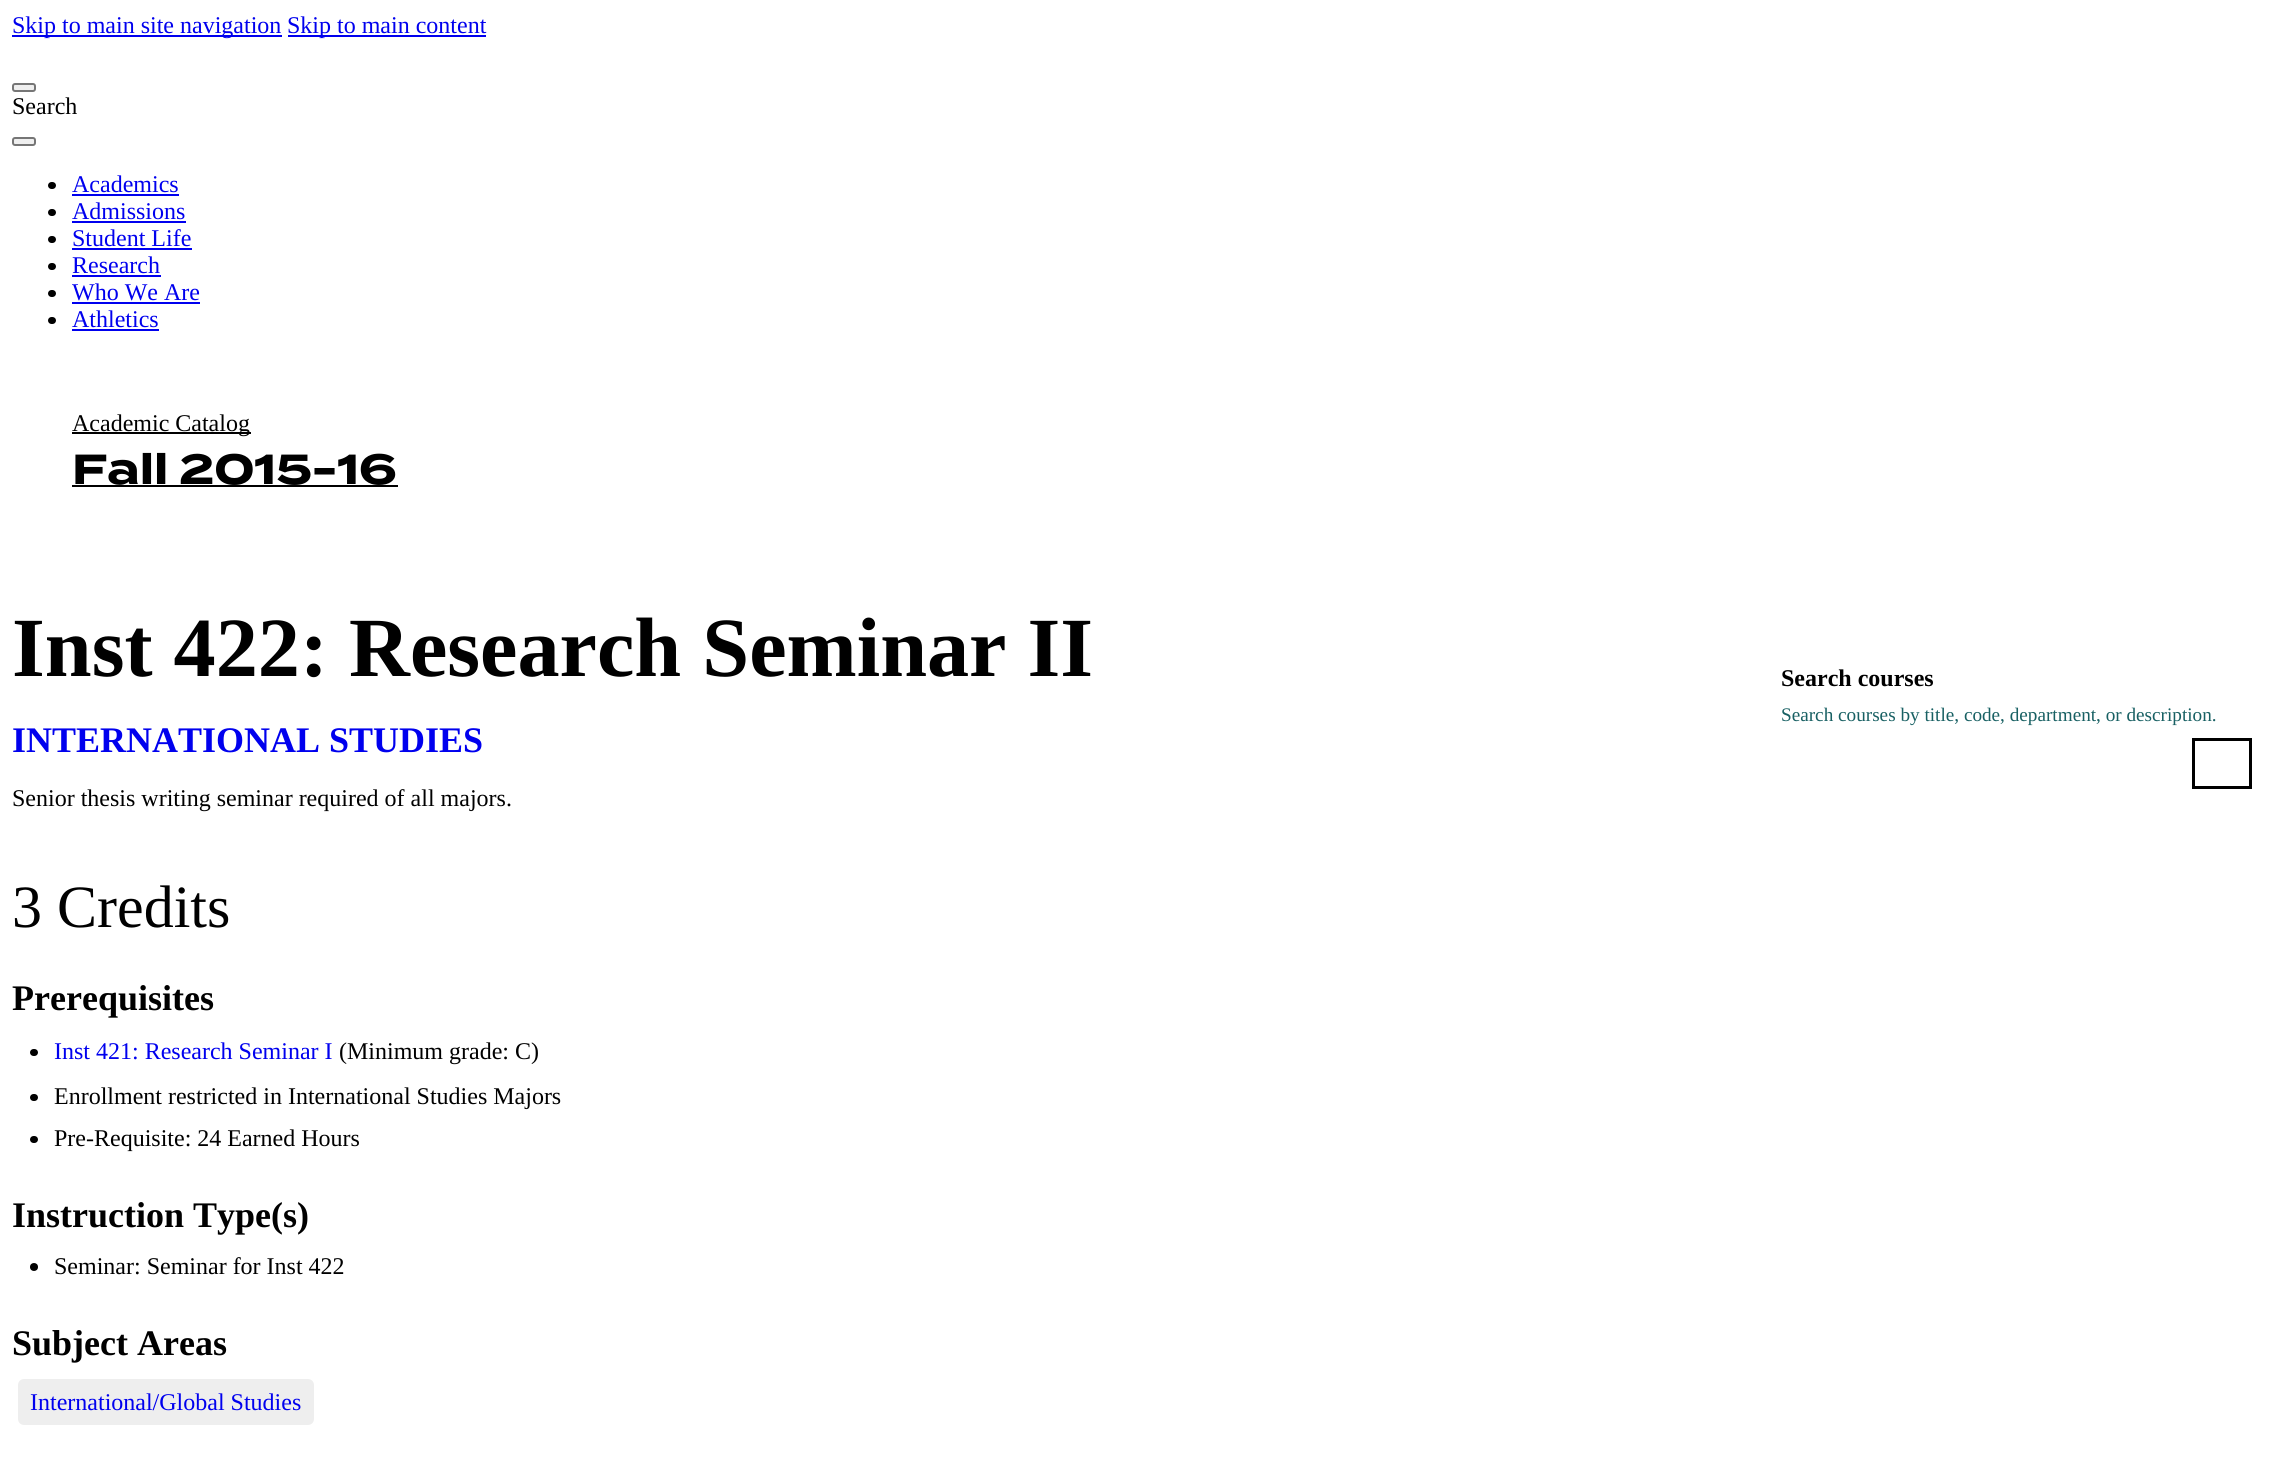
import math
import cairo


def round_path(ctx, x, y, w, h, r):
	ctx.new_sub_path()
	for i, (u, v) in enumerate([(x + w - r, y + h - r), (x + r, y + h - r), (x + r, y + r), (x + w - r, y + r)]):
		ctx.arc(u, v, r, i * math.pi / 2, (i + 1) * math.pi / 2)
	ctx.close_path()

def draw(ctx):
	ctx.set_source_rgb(1, 1, 1)
	ctx.paint()
	ctx.set_source_rgb(0, 0, 0.933)
	ctx.rectangle(12, 35, 270, 2)
	ctx.fill()
	ctx.select_font_face('Liberation Serif')
	ctx.set_font_size(24)
	ctx.move_to(12, 33)
	ctx.show_text('Skip to main site navigation')
	ctx.rectangle(288, 35, 198, 2)
	ctx.fill()
	ctx.move_to(287, 33)
	ctx.show_text('Skip to main content')
	ctx.set_source_rgb(0.937, 0.937, 0.937)
	round_path(ctx, 13, 84, 22, 7, 2)
	ctx.fill_preserve()
	ctx.set_source_rgb(0.463, 0.463, 0.463)
	ctx.stroke()
	ctx.set_source_rgb(0, 0, 0)
	ctx.move_to(12, 114)
	ctx.show_text('Search')
	ctx.set_source_rgb(0.937, 0.937, 0.937)
	round_path(ctx, 13, 138, 22, 7, 2)
	ctx.fill_preserve()
	ctx.set_source_rgb(0.463, 0.463, 0.463)
	ctx.stroke()
	ctx.set_source_rgb(0, 0, 0)
	round_path(ctx, 48, 182, 8, 7, 3.5)
	ctx.fill()
	ctx.set_source_rgb(0, 0, 0.933)
	ctx.move_to(72, 192)
	ctx.show_text('Academics')
	ctx.rectangle(72, 194, 107, 2)
	ctx.fill()
	ctx.set_source_rgb(0, 0, 0)
	round_path(ctx, 48, 209, 8, 7, 3.5)
	ctx.fill()
	ctx.set_source_rgb(0, 0, 0.933)
	ctx.move_to(72, 219)
	ctx.show_text('Admissions')
	ctx.rectangle(72, 221, 114, 2)
	ctx.fill()
	ctx.set_source_rgb(0, 0, 0)
	round_path(ctx, 48, 236, 8, 7, 3.5)
	ctx.fill()
	ctx.set_source_rgb(0, 0, 0.933)
	ctx.move_to(72, 246)
	ctx.show_text('Student Life')
	ctx.rectangle(72, 248, 120, 2)
	ctx.fill()
	ctx.set_source_rgb(0, 0, 0)
	round_path(ctx, 48, 263, 8, 7, 3.5)
	ctx.fill()
	ctx.set_source_rgb(0, 0, 0.933)
	ctx.move_to(72, 273)
	ctx.show_text('Research')
	ctx.rectangle(72, 275, 89, 2)
	ctx.fill()
	ctx.set_source_rgb(0, 0, 0)
	round_path(ctx, 48, 290, 8, 7, 3.5)
	ctx.fill()
	ctx.set_source_rgb(0, 0, 0.933)
	ctx.move_to(72, 300)
	ctx.show_text('Who We Are')
	ctx.rectangle(72, 302, 128, 2)
	ctx.fill()
	ctx.set_source_rgb(0, 0, 0)
	round_path(ctx, 48, 317, 8, 7, 3.5)
	ctx.fill()
	ctx.set_source_rgb(0, 0, 0.933)
	ctx.move_to(72, 327)
	ctx.show_text('Athletics')
	ctx.rectangle(72, 329, 87, 2)
	ctx.fill()
	ctx.set_source_rgb(0, 0, 0)
	ctx.rectangle(72, 432, 179, 2)
	ctx.fill()
	ctx.move_to(72, 431)
	ctx.show_text('Academic Catalog')
	ctx.select_font_face('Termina', cairo.FONT_SLANT_NORMAL, cairo.FONT_WEIGHT_BOLD)
	ctx.set_font_size(42)
	ctx.move_to(72, 484)
	ctx.show_text('Fall 2015-16')
	ctx.rectangle(72, 485, 326, 2)
	ctx.fill()
	ctx.select_font_face('Liberation Serif', cairo.FONT_SLANT_NORMAL, cairo.FONT_WEIGHT_BOLD)
	ctx.set_font_size(84.25)
	ctx.move_to(12, 676)
	ctx.show_text('Inst 422: Research Seminar II')
	ctx.set_font_size(36)
	ctx.set_source_rgb(0, 0, 0.933)
	ctx.move_to(12, 752)
	ctx.show_text('INTERNATIONAL STUDIES')
	ctx.select_font_face('Liberation Serif')
	ctx.set_font_size(24)
	ctx.set_source_rgb(0, 0, 0)
	ctx.move_to(12, 806)
	ctx.show_text('Senior thesis writing seminar required of all majors.')
	ctx.set_font_size(60)
	ctx.move_to(12, 927)
	ctx.show_text('3 Credits')
	ctx.select_font_face('Liberation Serif', cairo.FONT_SLANT_NORMAL, cairo.FONT_WEIGHT_BOLD)
	ctx.set_font_size(36)
	ctx.move_to(12, 1010)
	ctx.show_text('Prerequisites')
	round_path(ctx, 30, 1049, 8, 7, 3.5)
	ctx.fill()
	ctx.select_font_face('Liberation Serif')
	ctx.set_font_size(24)
	ctx.set_source_rgb(0, 0, 0.933)
	ctx.move_to(54, 1059)
	ctx.show_text('Inst 421: Research Seminar I')
	ctx.set_source_rgb(0, 0, 0)
	ctx.move_to(339, 1059)
	ctx.show_text('(Minimum grade: C)')
	round_path(ctx, 30, 1094, 8, 7, 3.5)
	ctx.fill()
	ctx.move_to(54, 1104)
	ctx.show_text('Enrollment restricted in International Studies Majors')
	round_path(ctx, 30, 1136, 8, 7, 3.5)
	ctx.fill()
	ctx.move_to(54, 1146)
	ctx.show_text('Pre-Requisite: 24 Earned Hours')
	ctx.select_font_face('Liberation Serif', cairo.FONT_SLANT_NORMAL, cairo.FONT_WEIGHT_BOLD)
	ctx.set_font_size(36)
	ctx.move_to(12, 1227)
	ctx.show_text('Instruction Type(s)')
	ctx.new_path()
	ctx.arc(34, 1267, 4, 0, 2 * math.pi)
	ctx.fill()
	ctx.select_font_face('Liberation Serif')
	ctx.set_font_size(24)
	ctx.move_to(54, 1274)
	ctx.show_text('Seminar: Seminar for Inst 422')
	ctx.select_font_face('Liberation Serif', cairo.FONT_SLANT_NORMAL, cairo.FONT_WEIGHT_BOLD)
	ctx.set_font_size(36)
	ctx.move_to(12, 1355)
	ctx.show_text('Subject Areas')
	ctx.set_source_rgb(0.933, 0.933, 0.933)
	round_path(ctx, 18, 1379, 296, 46, 6)
	ctx.fill()
	ctx.select_font_face('Liberation Serif')
	ctx.set_font_size(24)
	ctx.set_source_rgb(0, 0, 0.933)
	ctx.move_to(30, 1410)
	ctx.show_text('International/Global Studies')
	ctx.select_font_face('Liberation Serif', cairo.FONT_SLANT_NORMAL, cairo.FONT_WEIGHT_BOLD)
	ctx.set_source_rgb(0, 0, 0)
	ctx.move_to(1781, 686)
	ctx.show_text('Search courses')
	ctx.select_font_face('Liberation Serif')
	ctx.set_font_size(19.2)
	ctx.set_source_rgb(0.094, 0.376, 0.388)
	ctx.move_to(1781, 721)
	ctx.show_text('Search courses by title, code, department, or description.')
	ctx.rectangle(2193.5, 739.5, 57, 48)
	ctx.set_source_rgb(0, 0, 0)
	ctx.set_line_width(3)
	ctx.stroke()


surface = cairo.ImageSurface(cairo.FORMAT_RGB24, 2278, 1471)
ctx = cairo.Context(surface)
options = cairo.FontOptions()
options.set_hint_metrics(cairo.HINT_METRICS_OFF)
options.set_hint_style(cairo.HINT_STYLE_NONE)
ctx.set_font_options(options)
ctx.set_miter_limit(4)
draw(ctx)
surface.write_to_png('image.png')
